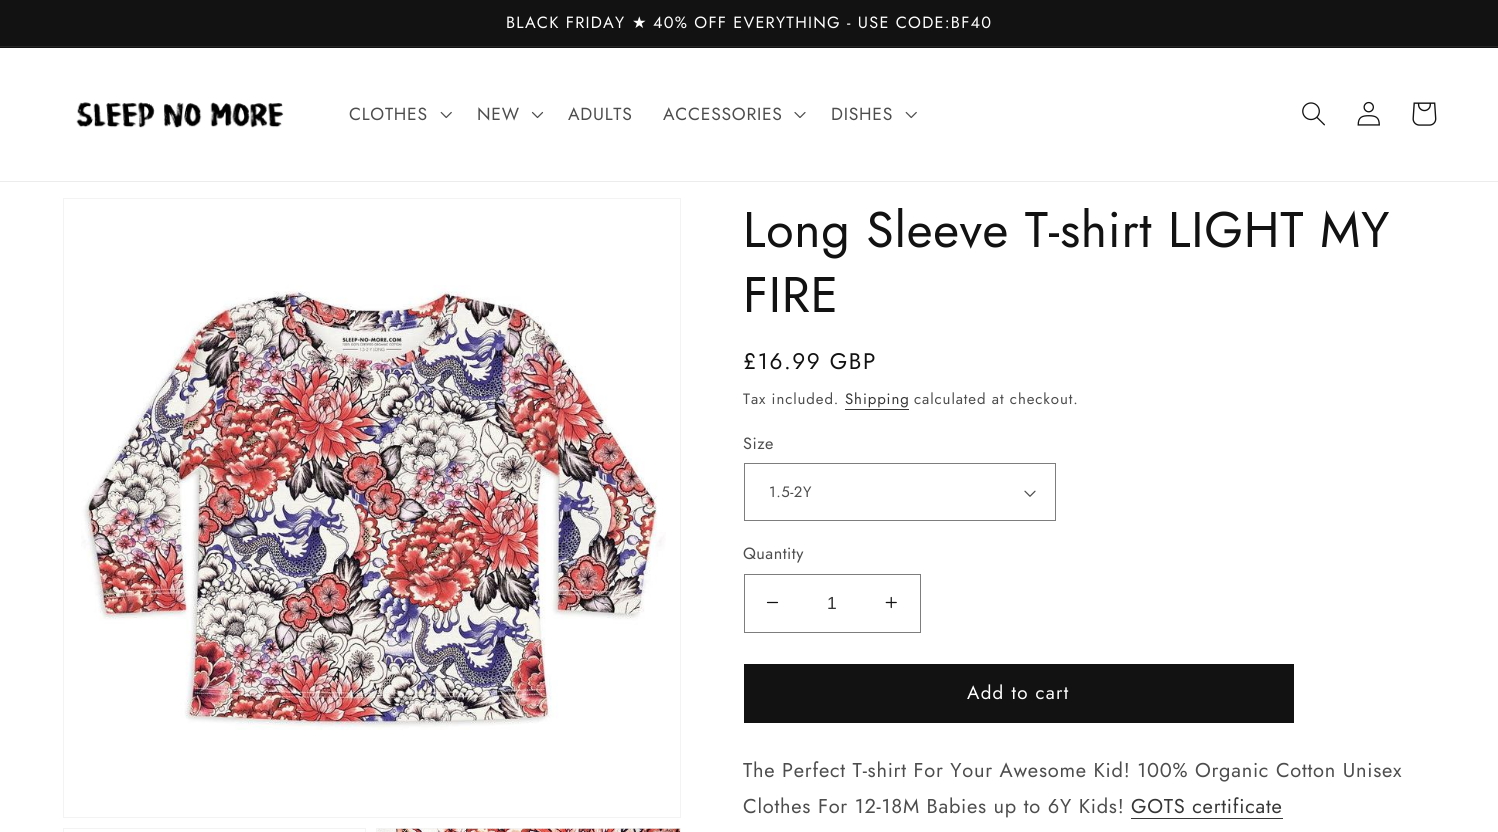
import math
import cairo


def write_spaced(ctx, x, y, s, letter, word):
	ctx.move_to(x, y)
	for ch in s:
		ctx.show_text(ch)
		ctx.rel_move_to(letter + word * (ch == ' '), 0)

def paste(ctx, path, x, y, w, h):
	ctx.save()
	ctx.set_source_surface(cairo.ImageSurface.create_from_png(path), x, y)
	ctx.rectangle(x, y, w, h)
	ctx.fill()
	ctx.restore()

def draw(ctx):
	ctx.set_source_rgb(1, 1, 1)
	ctx.paint()
	ctx.set_source_rgb(0.071, 0.071, 0.071)
	ctx.rectangle(0, 0, 1498, 48)
	ctx.fill()
	ctx.set_source_rgb(0.145, 0.145, 0.145)
	ctx.rectangle(0, 46, 1498, 1)
	ctx.fill()
	ctx.select_font_face('Jost')
	ctx.set_font_size(16.25)
	ctx.set_source_rgb(1, 1, 1)
	write_spaced(ctx, 506, 28, 'BLACK FRIDAY', 1.25, 0)
	ctx.select_font_face('DejaVu Sans')
	write_spaced(ctx, 632, 28, '★', 1.25, 0)
	ctx.select_font_face('Jost')
	write_spaced(ctx, 653, 28, '40% OFF EVERYTHING - USE CODE:BF40', 1.25, 0)
	ctx.set_source_rgb(0.925, 0.925, 0.925)
	ctx.rectangle(0, 181, 1498, 1)
	ctx.fill()
	paste(ctx, 'media/1.png', 76, 102, 208, 26)
	ctx.set_font_size(17.5)
	ctx.set_source_rgb(0.302, 0.302, 0.302)
	write_spaced(ctx, 349, 120, 'CLOTHES', 0.75, 0)
	paste(ctx, 'media/2.png', 440, 111, 12, 8)
	write_spaced(ctx, 477, 120, 'NEW', 0.75, 0)
	paste(ctx, 'media/3.png', 531, 111, 13, 8)
	write_spaced(ctx, 568, 120, 'ADULTS', 0.75, 0)
	write_spaced(ctx, 663, 120, 'ACCESSORIES', 0.75, 0)
	paste(ctx, 'media/4.png', 794, 112, 12, 6)
	write_spaced(ctx, 831, 120, 'DISHES', 0.75, 0)
	paste(ctx, 'media/2.png', 905, 111, 12, 8)
	paste(ctx, 'media/5.png', 1302, 102, 23, 24)
	paste(ctx, 'media/6.png', 1357, 101, 23, 25)
	paste(ctx, 'media/7.png', 1412, 102, 25, 24)
	ctx.rectangle(63.5, 198.5, 617, 619)
	ctx.set_source_rgb(0.953, 0.953, 0.953)
	ctx.set_line_width(1)
	ctx.stroke()
	paste(ctx, 'media/8.png', 81, 285, 585, 445)
	ctx.rectangle(63.5, 828.5, 302, 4)
	ctx.stroke()
	ctx.rectangle(376.5, 828.5, 304, 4)
	ctx.stroke()
	paste(ctx, 'media/9.png', 377, 828, 303, 4)
	ctx.set_font_size(50)
	ctx.set_source_rgb(0.071, 0.071, 0.071)
	write_spaced(ctx, 743, 247, 'Long Sleeve T-shirt LIGHT MY', 0.75, 0)
	write_spaced(ctx, 743, 312, 'FIRE', 0.75, 0)
	ctx.set_font_size(22.5)
	write_spaced(ctx, 743, 369, '£16.99 GBP', 1.6, 0)
	ctx.set_font_size(15)
	ctx.set_source_rgb(0.302, 0.302, 0.302)
	write_spaced(ctx, 743, 404, 'Tax included.', 0.9, 0)
	ctx.set_source_rgb(0.212, 0.212, 0.212)
	write_spaced(ctx, 845, 404, 'Shipping', 0.9, 0)
	ctx.rectangle(845, 409, 64, 1)
	ctx.fill()
	ctx.set_source_rgb(0.302, 0.302, 0.302)
	write_spaced(ctx, 914, 404, 'calculated at checkout.', 0.9, 0)
	ctx.set_font_size(16.25)
	write_spaced(ctx, 743, 449, 'Size', 0.5, 0)
	paste(ctx, 'media/10.png', 1024, 490, 12, 7)
	ctx.rectangle(744.5, 463.5, 311, 57)
	ctx.set_source_rgb(0.49, 0.49, 0.49)
	ctx.stroke()
	ctx.set_font_size(15)
	ctx.set_source_rgb(0.302, 0.302, 0.302)
	write_spaced(ctx, 769, 497, '1.5-2Y', 0.5, 0)
	ctx.set_font_size(16.25)
	write_spaced(ctx, 743, 559, 'Quantity', 0.5, 0)
	paste(ctx, 'media/11.png', 766, 601, 13, 3)
	paste(ctx, 'media/12.png', 885, 596, 12, 13)
	ctx.rectangle(744.5, 574.5, 176, 58)
	ctx.set_source_rgb(0.49, 0.49, 0.49)
	ctx.stroke()
	ctx.select_font_face('Liberation Sans')
	ctx.set_font_size(17.5)
	ctx.set_source_rgb(0.212, 0.212, 0.212)
	ctx.move_to(827, 609)
	ctx.show_text('1')
	ctx.set_source_rgb(0.071, 0.071, 0.071)
	ctx.rectangle(744, 664, 550, 59)
	ctx.fill()
	ctx.select_font_face('Jost')
	ctx.set_font_size(18.75)
	ctx.set_source_rgb(1, 1, 1)
	write_spaced(ctx, 967, 699, 'Add to cart', 1.25, 0)
	ctx.set_font_size(20)
	ctx.set_source_rgb(0.302, 0.302, 0.302)
	write_spaced(ctx, 743, 777, 'The Perfect T-shirt For Your Awesome Kid! 100% Organic Cotton Unisex', 0.75, 0)
	write_spaced(ctx, 743, 813, 'Clothes For 12-18M Babies up to 6Y Kids!', 0.75, 0)
	ctx.set_source_rgb(0.212, 0.212, 0.212)
	write_spaced(ctx, 1131, 813, 'GOTS certificate', 0.75, 0)
	ctx.rectangle(1131, 818, 152, 1)
	ctx.fill()


surface = cairo.ImageSurface(cairo.FORMAT_RGB24, 1498, 832)
ctx = cairo.Context(surface)
options = cairo.FontOptions()
options.set_hint_metrics(cairo.HINT_METRICS_OFF)
options.set_hint_style(cairo.HINT_STYLE_NONE)
ctx.set_font_options(options)
ctx.set_miter_limit(4)
draw(ctx)
surface.write_to_png('image.png')
